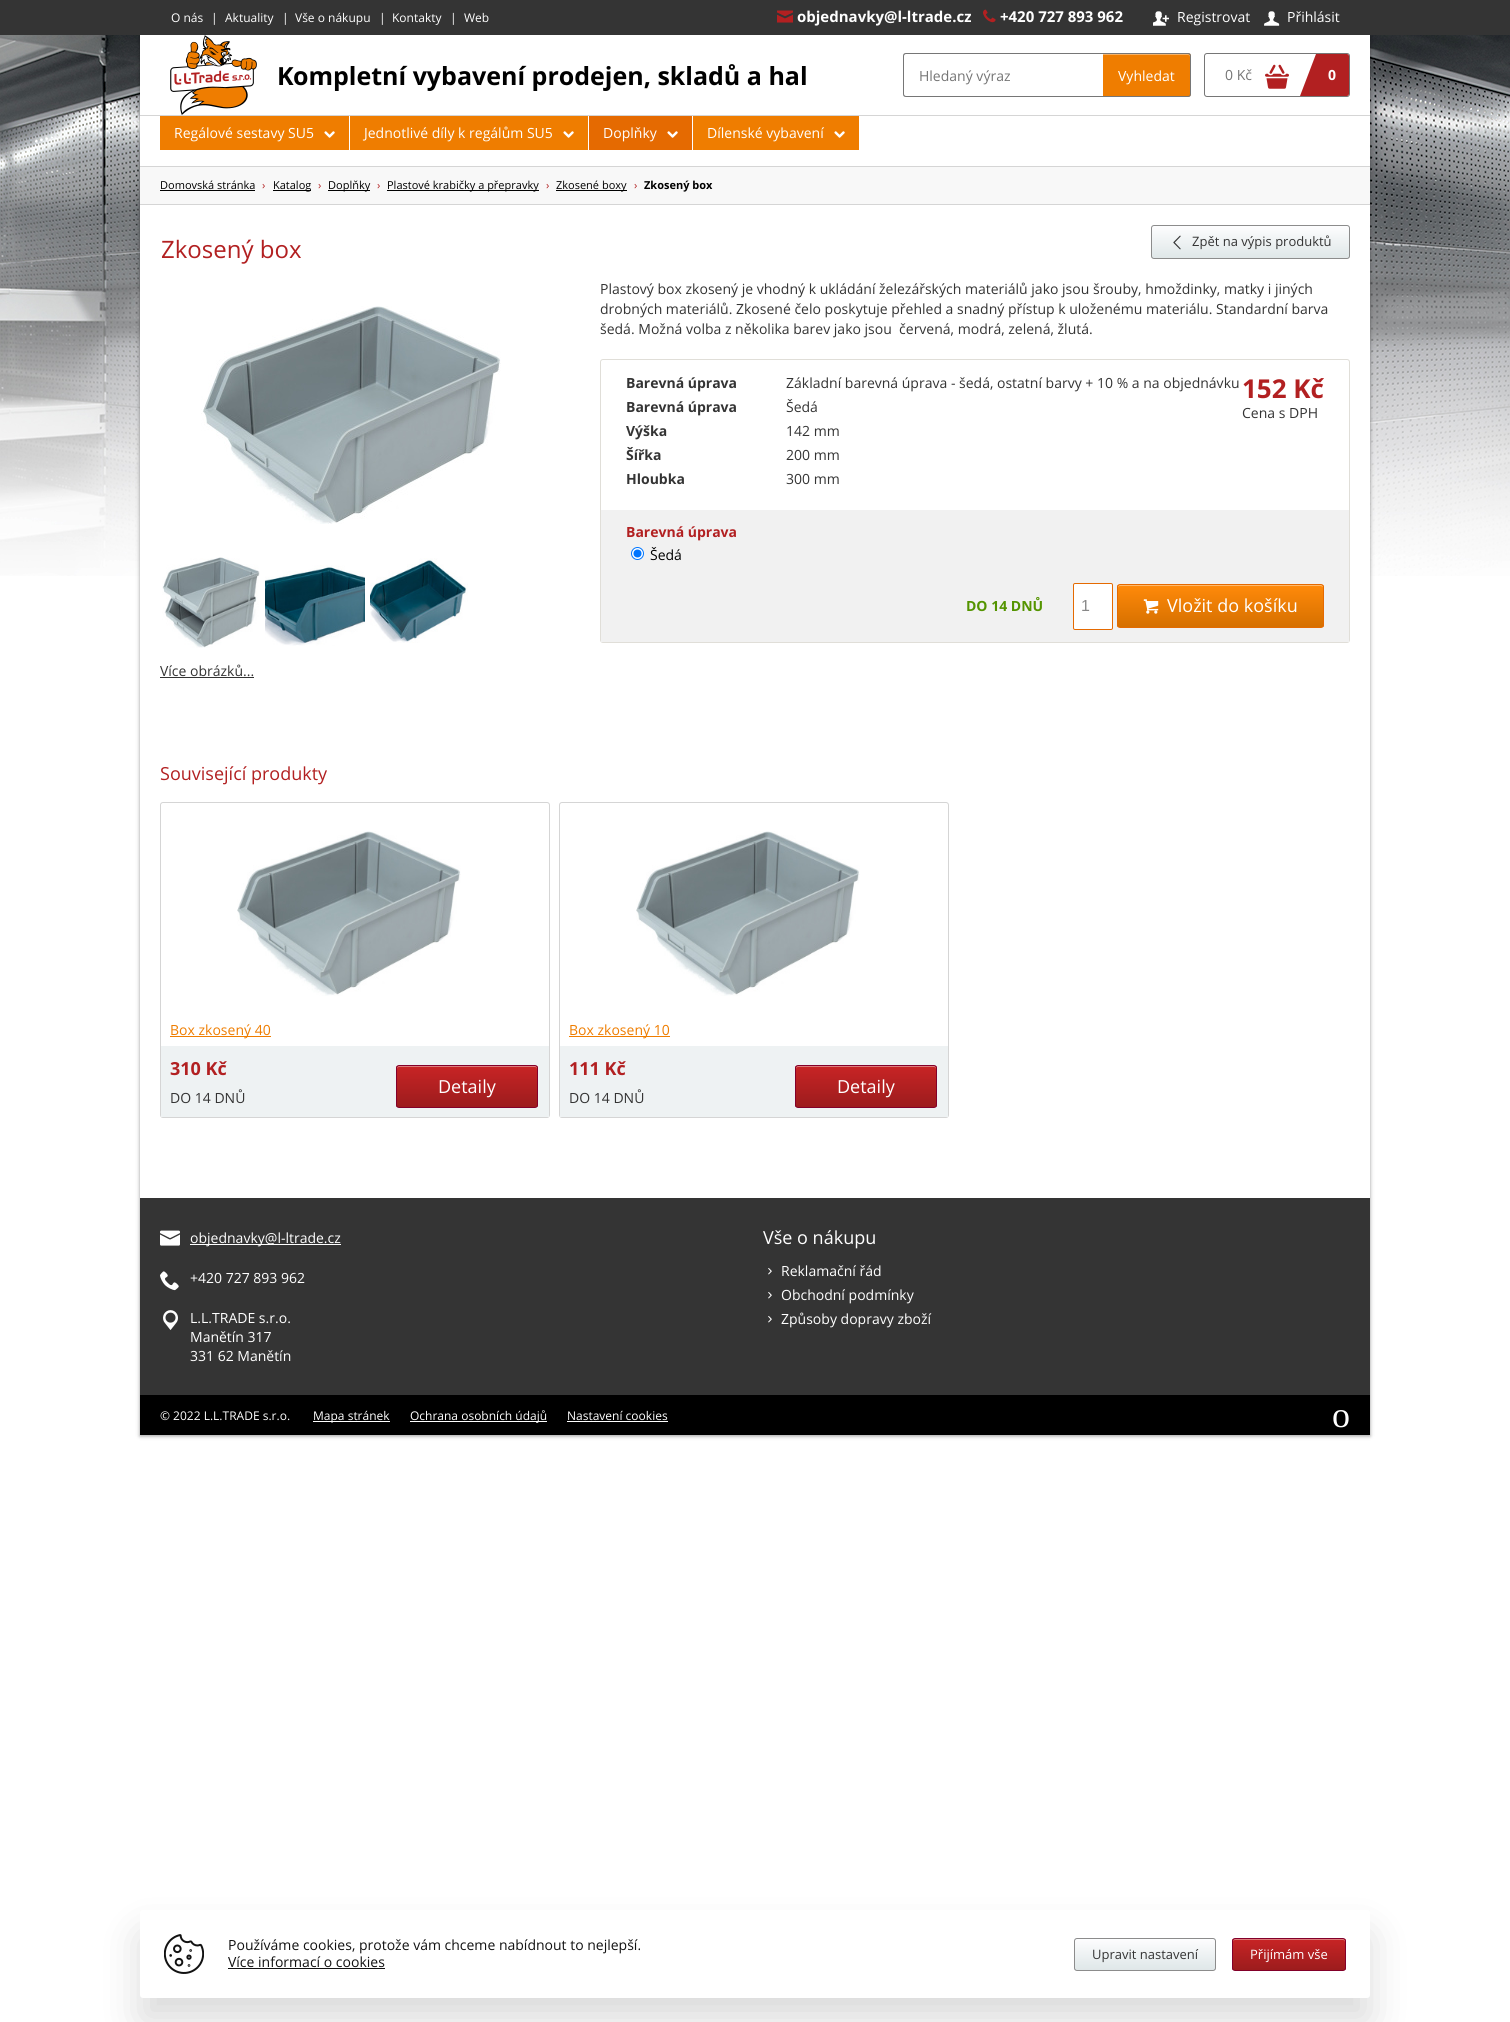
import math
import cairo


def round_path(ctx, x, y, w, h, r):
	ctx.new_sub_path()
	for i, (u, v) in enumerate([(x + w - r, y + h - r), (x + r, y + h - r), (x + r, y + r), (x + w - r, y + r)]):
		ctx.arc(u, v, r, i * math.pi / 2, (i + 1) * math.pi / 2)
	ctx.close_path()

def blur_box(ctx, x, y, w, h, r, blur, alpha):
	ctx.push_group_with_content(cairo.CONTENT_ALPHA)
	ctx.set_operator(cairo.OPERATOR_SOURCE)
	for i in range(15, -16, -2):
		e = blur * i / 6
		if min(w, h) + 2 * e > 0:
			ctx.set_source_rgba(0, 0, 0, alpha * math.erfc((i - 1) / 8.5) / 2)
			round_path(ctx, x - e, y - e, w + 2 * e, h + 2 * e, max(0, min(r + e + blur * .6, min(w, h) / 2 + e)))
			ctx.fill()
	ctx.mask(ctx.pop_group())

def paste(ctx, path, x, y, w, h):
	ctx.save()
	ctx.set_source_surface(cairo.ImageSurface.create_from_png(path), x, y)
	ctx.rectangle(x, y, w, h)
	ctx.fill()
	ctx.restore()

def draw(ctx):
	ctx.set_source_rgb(1, 1, 1)
	ctx.paint()
	paste(ctx, 'media/1.png', 0, 35, 1510, 541)
	ctx.set_source_rgb(0, 0, 0)
	blur_box(ctx, 140, 36, 1230, 1400, 0, 2, 0.4)
	ctx.set_source_rgb(0.204, 0.204, 0.204)
	ctx.rectangle(0, 0, 1510, 35)
	ctx.fill()
	ctx.select_font_face('Open Sans')
	ctx.set_font_size(12)
	ctx.set_source_rgb(1, 1, 1)
	for x, y, s in [
		(171, 22, 'O nás'),
		(211, 22, '|'),
		(225, 22, 'Aktuality'),
		(282, 22, '|'),
		(295, 22, 'Vše o nákupu'),
		(379, 22, '|'),
		(392, 22, 'Kontakty'),
		(450, 22, '|'),
		(464, 22, 'Web'),
	]:
		ctx.move_to(x, y)
		ctx.show_text(s)
	paste(ctx, 'media/2.png', 777, 10, 16, 13)
	ctx.select_font_face('Open Sans', cairo.FONT_SLANT_NORMAL, cairo.FONT_WEIGHT_BOLD)
	ctx.set_font_size(15)
	ctx.move_to(797, 22)
	ctx.show_text('objednavky@l-ltrade.cz')
	paste(ctx, 'media/3.png', 983, 9, 13, 14)
	ctx.move_to(1000, 22)
	ctx.show_text('+420 727 893 962')
	paste(ctx, 'media/4.png', 1153, 11, 16, 15)
	ctx.select_font_face('Open Sans')
	ctx.set_font_size(14)
	ctx.move_to(1177, 22)
	ctx.show_text('Registrovat')
	paste(ctx, 'media/5.png', 1264, 11, 16, 15)
	ctx.move_to(1287, 22)
	ctx.show_text('Přihlásit')
	ctx.rectangle(140, 35, 1230, 1163)
	ctx.fill()
	paste(ctx, 'media/6.png', 170, 35, 87, 80)
	ctx.select_font_face('Noto Sans', cairo.FONT_SLANT_NORMAL, cairo.FONT_WEIGHT_BOLD)
	ctx.set_font_size(25)
	ctx.set_source_rgb(0, 0, 0)
	ctx.move_to(277, 85)
	ctx.show_text('K')
	ctx.select_font_face('Open Sans', cairo.FONT_SLANT_NORMAL, cairo.FONT_WEIGHT_BOLD)
	ctx.move_to(293, 85)
	ctx.show_text('ompletní vybavení prodejen, skladů a hal')
	ctx.set_source_rgb(0.463, 0.463, 0.463)
	ctx.set_fill_rule(cairo.FILL_RULE_EVEN_ODD)
	ctx.new_path()
	ctx.move_to(906, 53)
	ctx.line_to(1103, 53)
	ctx.line_to(1103, 97)
	ctx.line_to(906, 97)
	ctx.curve_to(904, 97, 903, 96, 903, 94)
	ctx.line_to(903, 56)
	ctx.curve_to(903, 54, 904, 53, 906, 53)
	ctx.close_path()
	ctx.move_to(906, 54)
	ctx.line_to(1103, 54)
	ctx.line_to(1103, 96)
	ctx.line_to(906, 96)
	ctx.curve_to(905, 96, 904, 95, 904, 94)
	ctx.line_to(904, 56)
	ctx.curve_to(904, 55, 905, 54, 906, 54)
	ctx.close_path()
	ctx.fill()
	ctx.select_font_face('Open Sans')
	ctx.set_font_size(14)
	ctx.set_source_rgb(0.459, 0.459, 0.459)
	ctx.move_to(919, 81)
	ctx.show_text('Hledaný výraz')
	ctx.set_source_rgb(0.937, 0.49, 0)
	ctx.new_path()
	ctx.move_to(1103, 53)
	ctx.line_to(1188, 53)
	ctx.curve_to(1189.5, 53, 1191, 54.5, 1191, 56)
	ctx.line_to(1191, 94)
	ctx.curve_to(1191, 95.5, 1189.5, 97, 1188, 97)
	ctx.line_to(1103, 97)
	ctx.close_path()
	ctx.fill()
	ctx.set_source_rgb(0.961, 0.694, 0.4)
	ctx.set_fill_rule(cairo.FILL_RULE_WINDING)
	ctx.new_path()
	ctx.move_to(1103, 55)
	ctx.line_to(1188, 55)
	ctx.curve_to(1189, 55, 1190, 56, 1190, 57)
	ctx.line_to(1190, 56)
	ctx.curve_to(1190, 55, 1189, 54, 1188, 54)
	ctx.line_to(1103, 54)
	ctx.close_path()
	ctx.fill()
	ctx.set_source_rgb(0.463, 0.463, 0.463)
	ctx.set_fill_rule(cairo.FILL_RULE_EVEN_ODD)
	ctx.new_path()
	ctx.move_to(1103, 53)
	ctx.line_to(1188, 53)
	ctx.curve_to(1190, 53, 1191, 54, 1191, 56)
	ctx.line_to(1191, 94)
	ctx.curve_to(1191, 96, 1190, 97, 1188, 97)
	ctx.line_to(1103, 97)
	ctx.close_path()
	ctx.move_to(1103, 54)
	ctx.line_to(1188, 54)
	ctx.curve_to(1189, 54, 1190, 55, 1190, 56)
	ctx.line_to(1190, 94)
	ctx.curve_to(1190, 95, 1189, 96, 1188, 96)
	ctx.line_to(1103, 96)
	ctx.close_path()
	ctx.fill()
	ctx.set_source_rgb(1, 1, 1)
	ctx.move_to(1118, 81)
	ctx.show_text('Vyhledat')
	round_path(ctx, 1204.5, 53.5, 145, 43, 2.5)
	ctx.set_source_rgb(0.463, 0.463, 0.463)
	ctx.set_line_width(1)
	ctx.stroke()
	ctx.set_source_rgb(0.459, 0.459, 0.459)
	ctx.move_to(1225, 80)
	ctx.show_text('0 Kč')
	paste(ctx, 'media/7.png', 1265, 64, 24, 25)
	ctx.set_source_rgb(0.698, 0.125, 0.129)
	ctx.set_fill_rule(cairo.FILL_RULE_WINDING)
	ctx.new_path()
	ctx.move_to(1300, 96)
	ctx.line_to(1316, 54)
	ctx.line_to(1347, 54)
	ctx.curve_to(1348, 54, 1349, 55, 1349, 56)
	ctx.line_to(1349, 94)
	ctx.curve_to(1349, 95, 1348, 96, 1347, 96)
	ctx.close_path()
	ctx.fill()
	ctx.select_font_face('Open Sans', cairo.FONT_SLANT_NORMAL, cairo.FONT_WEIGHT_BOLD)
	ctx.set_source_rgb(1, 1, 1)
	ctx.move_to(1328, 80)
	ctx.show_text('0')
	ctx.set_source_rgb(0.835, 0.835, 0.835)
	ctx.rectangle(140, 115, 1230, 1)
	ctx.fill()
	ctx.set_source_rgb(0.937, 0.49, 0)
	ctx.rectangle(160, 116, 189, 34)
	ctx.fill()
	ctx.select_font_face('Open Sans')
	ctx.set_source_rgb(1, 1, 1)
	ctx.move_to(174, 138)
	ctx.show_text('Regálové sestavy SU5')
	paste(ctx, 'media/8.png', 324, 131, 11, 7)
	ctx.set_source_rgb(0.937, 0.49, 0)
	ctx.rectangle(350, 116, 238, 34)
	ctx.fill()
	ctx.set_source_rgb(1, 1, 1)
	ctx.move_to(364, 138)
	ctx.show_text('Jednotlivé díly k regálům SU5')
	paste(ctx, 'media/8.png', 563, 131, 11, 7)
	ctx.set_source_rgb(0.898, 0.416, 0.004)
	ctx.rectangle(589, 116, 103, 34)
	ctx.fill()
	ctx.set_source_rgb(1, 1, 1)
	ctx.move_to(603, 138)
	ctx.show_text('Doplňky')
	paste(ctx, 'media/9.png', 667, 131, 11, 7)
	ctx.set_source_rgb(0.937, 0.49, 0)
	ctx.rectangle(693, 116, 166, 34)
	ctx.fill()
	ctx.set_source_rgb(1, 1, 1)
	ctx.move_to(707, 138)
	ctx.show_text('Dílenské vybavení')
	paste(ctx, 'media/8.png', 834, 131, 11, 7)
	ctx.set_source_rgb(0.969, 0.969, 0.969)
	ctx.rectangle(140, 167, 1230, 37)
	ctx.fill()
	ctx.set_source_rgb(0.835, 0.835, 0.835)
	ctx.rectangle(140, 166, 1230, 1)
	ctx.rectangle(140, 204, 1230, 1)
	ctx.fill()
	ctx.set_font_size(11)
	ctx.set_source_rgb(0, 0, 0)
	ctx.move_to(160, 189)
	ctx.show_text('Domovská stránka')
	ctx.rectangle(160, 190, 95, 1)
	ctx.fill()
	ctx.set_source_rgb(0.698, 0.125, 0.129)
	ctx.move_to(262, 189)
	ctx.show_text('›')
	ctx.set_source_rgb(0, 0, 0)
	ctx.rectangle(273, 190, 38, 1)
	ctx.fill()
	ctx.move_to(273, 189)
	ctx.show_text('Katalog')
	ctx.set_source_rgb(0.698, 0.125, 0.129)
	ctx.move_to(318, 189)
	ctx.show_text('›')
	ctx.set_source_rgb(0, 0, 0)
	ctx.rectangle(328, 190, 42, 1)
	ctx.fill()
	ctx.move_to(328, 189)
	ctx.show_text('Doplňky')
	ctx.set_source_rgb(0.698, 0.125, 0.129)
	ctx.move_to(377, 189)
	ctx.show_text('›')
	ctx.set_source_rgb(0, 0, 0)
	ctx.rectangle(387, 190, 152, 1)
	ctx.fill()
	ctx.move_to(387, 189)
	ctx.show_text('Plastové krabičky a přepravky')
	ctx.set_source_rgb(0.698, 0.125, 0.129)
	ctx.move_to(546, 189)
	ctx.show_text('›')
	ctx.set_source_rgb(0, 0, 0)
	ctx.rectangle(556, 190, 71, 1)
	ctx.fill()
	ctx.move_to(556, 189)
	ctx.show_text('Zkosené boxy')
	ctx.set_source_rgb(0.698, 0.125, 0.129)
	ctx.move_to(634, 189)
	ctx.show_text('›')
	ctx.select_font_face('Open Sans', cairo.FONT_SLANT_NORMAL, cairo.FONT_WEIGHT_BOLD)
	ctx.set_source_rgb(0, 0, 0)
	ctx.move_to(644, 189)
	ctx.show_text('Zkosený box')
	ctx.select_font_face('Open Sans')
	ctx.set_font_size(24)
	ctx.set_source_rgb(0.698, 0.125, 0.129)
	ctx.move_to(161, 258)
	ctx.show_text('Zkosený box')
	ctx.save()
	round_path(ctx, 1151, 225, 199, 34, 3)
	ctx.clip()
	gradient = cairo.LinearGradient(1251, 226, 1251, 258)
	gradient.add_color_stop_rgba(0, 0.992, 0.992, 0.996, 1)
	gradient.add_color_stop_rgba(1, 0.875, 0.906, 0.91, 1)
	ctx.set_source(gradient)
	ctx.rectangle(1151, 226, 199, 32)
	ctx.fill()
	ctx.restore()
	round_path(ctx, 1151.5, 225.5, 198, 33, 2.5)
	ctx.set_source_rgb(0.549, 0.549, 0.549)
	ctx.stroke()
	paste(ctx, 'media/10.png', 1173, 235, 8, 15)
	ctx.set_font_size(13)
	ctx.set_source_rgb(0.204, 0.204, 0.204)
	ctx.move_to(1192, 246)
	ctx.show_text('Zpět na výpis produktů')
	ctx.set_font_size(14)
	for x, y, s in [
		(600, 294, 'Plastový box zkosený je vhodný k ukládání železářských materiálů jako jsou šrouby, hmoždinky, matky i jiných'),
		(600, 314, 'drobných materiálů. Zkosené čelo poskytuje přehled a snadný přístup k uloženému materiálu. Standardní barva'),
		(600, 334, 'šedá. Možná volba z několika barev jako jsou  červená, modrá, zelená, žlutá.'),
	]:
		ctx.move_to(x, y)
		ctx.show_text(s)
	round_path(ctx, 600.5, 359.5, 749, 283, 2.5)
	ctx.set_source_rgb(0.878, 0.871, 0.847)
	ctx.stroke()
	ctx.select_font_face('Open Sans', cairo.FONT_SLANT_NORMAL, cairo.FONT_WEIGHT_BOLD)
	ctx.set_source_rgb(0.204, 0.204, 0.204)
	ctx.move_to(626, 388)
	ctx.show_text('Barevná úprava')
	ctx.select_font_face('Open Sans')
	ctx.move_to(786, 388)
	ctx.show_text('Základní barevná úprava - šedá, ostatní barvy + 10 % a na objednávku')
	ctx.select_font_face('Open Sans', cairo.FONT_SLANT_NORMAL, cairo.FONT_WEIGHT_BOLD)
	ctx.move_to(626, 412)
	ctx.show_text('Barevná úprava')
	ctx.select_font_face('Open Sans')
	ctx.move_to(786, 412)
	ctx.show_text('Šedá')
	ctx.select_font_face('Open Sans', cairo.FONT_SLANT_NORMAL, cairo.FONT_WEIGHT_BOLD)
	ctx.move_to(626, 436)
	ctx.show_text('Výška')
	ctx.select_font_face('Open Sans')
	ctx.move_to(786, 436)
	ctx.show_text('142 mm')
	ctx.select_font_face('Open Sans', cairo.FONT_SLANT_NORMAL, cairo.FONT_WEIGHT_BOLD)
	ctx.move_to(626, 460)
	ctx.show_text('Šířka')
	ctx.select_font_face('Open Sans')
	ctx.move_to(786, 460)
	ctx.show_text('200 mm')
	ctx.select_font_face('Open Sans', cairo.FONT_SLANT_NORMAL, cairo.FONT_WEIGHT_BOLD)
	ctx.move_to(626, 484)
	ctx.show_text('Hloubka')
	ctx.select_font_face('Open Sans')
	ctx.move_to(786, 484)
	ctx.show_text('300 mm')
	ctx.select_font_face('Open Sans', cairo.FONT_SLANT_NORMAL, cairo.FONT_WEIGHT_BOLD)
	ctx.set_font_size(26)
	ctx.set_source_rgb(0.698, 0.125, 0.129)
	ctx.move_to(1242, 398)
	ctx.show_text('152 Kč')
	ctx.select_font_face('Open Sans')
	ctx.set_font_size(14)
	ctx.set_source_rgb(0.204, 0.204, 0.204)
	ctx.move_to(1242, 418)
	ctx.show_text('Cena s DPH')
	ctx.set_source_rgb(0.945, 0.945, 0.945)
	ctx.rectangle(601, 510, 748, 132)
	ctx.fill()
	ctx.select_font_face('Open Sans', cairo.FONT_SLANT_NORMAL, cairo.FONT_WEIGHT_BOLD)
	ctx.set_source_rgb(0.698, 0.125, 0.129)
	ctx.move_to(626, 537)
	ctx.show_text('Barevná úprava')
	ctx.set_source_rgb(1, 1, 1)
	ctx.new_path()
	ctx.arc(637.5, 553.5, 6, 0, 2 * math.pi)
	ctx.fill_preserve()
	ctx.set_source_rgb(0, 0.459, 1)
	ctx.stroke()
	ctx.arc(637.5, 553.5, 4, 0, 2 * math.pi)
	ctx.fill()
	ctx.select_font_face('Open Sans')
	ctx.set_source_rgb(0, 0, 0)
	ctx.move_to(650, 560)
	ctx.show_text('Šedá')
	ctx.select_font_face('Open Sans', cairo.FONT_SLANT_NORMAL, cairo.FONT_WEIGHT_BOLD)
	ctx.set_source_rgb(0.329, 0.58, 0)
	ctx.move_to(966, 611)
	ctx.show_text('DO 14 DNŮ')
	ctx.set_source_rgb(1, 1, 1)
	round_path(ctx, 1073.5, 583.5, 39, 46, 1.5)
	ctx.fill_preserve()
	ctx.set_source_rgb(0.898, 0.416, 0.004)
	ctx.stroke()
	ctx.select_font_face('Liberation Sans')
	ctx.set_font_size(16)
	ctx.set_source_rgb(0.533, 0.533, 0.533)
	ctx.move_to(1081, 611)
	ctx.show_text('1')
	ctx.save()
	round_path(ctx, 1117, 584, 207, 44, 3)
	ctx.clip()
	gradient = cairo.LinearGradient(1221, 585, 1221, 627)
	gradient.add_color_stop_rgba(0, 1, 0.541, 0.039, 1)
	gradient.add_color_stop_rgba(1, 0.839, 0.439, 0, 1)
	ctx.set_source(gradient)
	ctx.rectangle(1117, 585, 207, 42)
	ctx.fill()
	ctx.restore()
	ctx.set_source_rgb(1, 0.725, 0.424)
	ctx.new_path()
	ctx.move_to(1120, 586)
	ctx.line_to(1321, 586)
	ctx.line_to(1323, 587)
	ctx.line_to(1323, 588)
	ctx.curve_to(1323, 587, 1323, 585, 1321, 585)
	ctx.line_to(1120, 585)
	ctx.curve_to(1118, 585, 1118, 587, 1118, 588)
	ctx.curve_to(1118, 587, 1119, 586, 1120, 586)
	ctx.close_path()
	ctx.fill()
	round_path(ctx, 1117.5, 584.5, 206, 43, 2.5)
	ctx.set_source_rgb(0.898, 0.416, 0.004)
	ctx.stroke()
	paste(ctx, 'media/11.png', 1143, 599, 16, 15)
	ctx.select_font_face('Open Sans')
	ctx.set_font_size(18)
	ctx.set_source_rgb(1, 1, 1)
	ctx.move_to(1167, 612)
	ctx.show_text('Vložit do košíku')
	paste(ctx, 'media/12.png', 201, 306, 300, 218)
	paste(ctx, 'media/13.png', 162, 557, 98, 91)
	paste(ctx, 'media/14.png', 265, 565, 100, 81)
	paste(ctx, 'media/15.png', 370, 558, 98, 85)
	ctx.set_font_size(14)
	ctx.set_source_rgb(0.204, 0.204, 0.204)
	ctx.move_to(160, 676)
	ctx.show_text('Více obrázků...')
	ctx.set_source_rgb(0.2, 0.2, 0.2)
	ctx.rectangle(160, 677, 94, 1)
	ctx.fill()
	ctx.set_font_size(18)
	ctx.set_source_rgb(0.698, 0.125, 0.129)
	ctx.move_to(160, 780)
	ctx.show_text('Související produkty')
	round_path(ctx, 160.5, 802.5, 389, 315, 2.5)
	ctx.set_source_rgb(0.835, 0.835, 0.835)
	ctx.stroke()
	paste(ctx, 'media/16.png', 237, 831, 224, 165)
	ctx.set_source_rgb(0.937, 0.49, 0)
	ctx.rectangle(170, 1036, 101, 1)
	ctx.fill()
	ctx.set_font_size(14)
	ctx.move_to(170, 1035)
	ctx.show_text('Box zkosený 40')
	ctx.set_source_rgb(0.933, 0.949, 0.953)
	ctx.rectangle(161, 1046, 388, 71)
	ctx.fill()
	ctx.select_font_face('Open Sans', cairo.FONT_SLANT_NORMAL, cairo.FONT_WEIGHT_BOLD)
	ctx.set_font_size(18)
	ctx.set_source_rgb(0.698, 0.125, 0.129)
	ctx.move_to(170, 1075)
	ctx.show_text('310 Kč')
	ctx.select_font_face('Open Sans')
	ctx.set_font_size(14)
	ctx.set_source_rgb(0.204, 0.204, 0.204)
	ctx.move_to(170, 1103)
	ctx.show_text('DO 14 DNŮ')
	ctx.save()
	round_path(ctx, 396, 1065, 142, 43, 3)
	ctx.clip()
	gradient = cairo.LinearGradient(467, 1066, 467, 1107)
	gradient.add_color_stop_rgba(0, 0.784, 0.141, 0.145, 1)
	gradient.add_color_stop_rgba(1, 0.612, 0.11, 0.114, 1)
	ctx.set_source(gradient)
	ctx.rectangle(396, 1066, 142, 41)
	ctx.fill()
	ctx.restore()
	ctx.set_source_rgb(0.867, 0.486, 0.486)
	ctx.new_path()
	ctx.move_to(399, 1067)
	ctx.line_to(535, 1067)
	ctx.curve_to(536, 1067, 537, 1068, 537, 1069)
	ctx.curve_to(537, 1068, 537, 1066, 535, 1066)
	ctx.line_to(399, 1066)
	ctx.curve_to(397, 1066, 397, 1068, 397, 1069)
	ctx.curve_to(397, 1068, 398, 1067, 399, 1067)
	ctx.close_path()
	ctx.fill()
	round_path(ctx, 396.5, 1065.5, 141, 42, 2.5)
	ctx.set_source_rgb(0.514, 0, 0.165)
	ctx.stroke()
	ctx.set_font_size(18)
	ctx.set_source_rgb(1, 1, 1)
	ctx.move_to(438, 1093)
	ctx.show_text('Detaily')
	round_path(ctx, 559.5, 802.5, 389, 315, 2.5)
	ctx.set_source_rgb(0.835, 0.835, 0.835)
	ctx.stroke()
	paste(ctx, 'media/17.png', 636, 831, 224, 165)
	ctx.set_source_rgb(0.937, 0.49, 0)
	ctx.rectangle(569, 1036, 101, 1)
	ctx.fill()
	ctx.set_font_size(14)
	ctx.move_to(569, 1035)
	ctx.show_text('Box zkosený 10')
	ctx.set_source_rgb(0.933, 0.949, 0.953)
	ctx.rectangle(560, 1046, 388, 71)
	ctx.fill()
	ctx.select_font_face('Open Sans', cairo.FONT_SLANT_NORMAL, cairo.FONT_WEIGHT_BOLD)
	ctx.set_font_size(18)
	ctx.set_source_rgb(0.698, 0.125, 0.129)
	ctx.move_to(569, 1075)
	ctx.show_text('111 Kč')
	ctx.select_font_face('Open Sans')
	ctx.set_font_size(14)
	ctx.set_source_rgb(0.204, 0.204, 0.204)
	ctx.move_to(569, 1103)
	ctx.show_text('DO 14 DNŮ')
	ctx.save()
	round_path(ctx, 795, 1065, 142, 43, 3)
	ctx.clip()
	gradient = cairo.LinearGradient(866, 1066, 866, 1107)
	gradient.add_color_stop_rgba(0, 0.784, 0.141, 0.145, 1)
	gradient.add_color_stop_rgba(1, 0.612, 0.11, 0.114, 1)
	ctx.set_source(gradient)
	ctx.rectangle(795, 1066, 142, 41)
	ctx.fill()
	ctx.restore()
	ctx.set_source_rgb(0.867, 0.486, 0.486)
	ctx.new_path()
	ctx.move_to(798, 1067)
	ctx.line_to(934, 1067)
	ctx.curve_to(935, 1067, 936, 1068, 936, 1069)
	ctx.curve_to(936, 1068, 936, 1066, 934, 1066)
	ctx.line_to(798, 1066)
	ctx.curve_to(796, 1066, 796, 1068, 796, 1069)
	ctx.curve_to(796, 1068, 797, 1067, 798, 1067)
	ctx.close_path()
	ctx.fill()
	round_path(ctx, 795.5, 1065.5, 141, 42, 2.5)
	ctx.set_source_rgb(0.514, 0, 0.165)
	ctx.stroke()
	ctx.set_font_size(18)
	ctx.set_source_rgb(1, 1, 1)
	ctx.move_to(837, 1093)
	ctx.show_text('Detaily')
	ctx.set_source_rgb(0.204, 0.204, 0.204)
	ctx.rectangle(140, 1198, 1230, 197)
	ctx.fill()
	paste(ctx, 'media/18.png', 160, 1230, 20, 16)
	ctx.set_source_rgb(1, 1, 1)
	ctx.rectangle(190, 1244, 151, 1)
	ctx.fill()
	ctx.set_font_size(14)
	ctx.move_to(190, 1243)
	ctx.show_text('objednavky@l-ltrade.cz')
	paste(ctx, 'media/19.png', 160, 1271, 19, 20)
	ctx.move_to(190, 1283)
	ctx.show_text('+420 727 893 962')
	paste(ctx, 'media/20.png', 163, 1310, 15, 20)
	for x, y, s in [
		(190, 1323, 'L.L.TRADE s.r.o.'),
		(190, 1342, 'Manětín 317'),
		(190, 1361, '331 62 Manětín'),
	]:
		ctx.move_to(x, y)
		ctx.show_text(s)
	ctx.set_font_size(18)
	ctx.move_to(763, 1244)
	ctx.show_text('Vše o nákupu')
	paste(ctx, 'media/21.png', 768, 1268, 4, 7)
	ctx.set_font_size(14)
	ctx.move_to(781, 1276)
	ctx.show_text('Reklamační řád')
	paste(ctx, 'media/21.png', 768, 1292, 4, 7)
	ctx.move_to(781, 1300)
	ctx.show_text('Obchodní podmínky')
	paste(ctx, 'media/21.png', 768, 1316, 4, 7)
	ctx.move_to(781, 1324)
	ctx.show_text('Způsoby dopravy zboží')
	ctx.set_source_rgb(0, 0, 0)
	ctx.rectangle(140, 1395, 1230, 40)
	ctx.fill()
	ctx.set_font_size(12)
	ctx.set_source_rgb(1, 1, 1)
	ctx.move_to(160, 1420)
	ctx.show_text('© 2022 L.L.TRADE s.r.o.')
	ctx.rectangle(313, 1421, 77, 1)
	ctx.fill()
	ctx.move_to(313, 1420)
	ctx.show_text('Mapa stránek')
	ctx.rectangle(410, 1421, 137, 1)
	ctx.fill()
	ctx.move_to(410, 1420)
	ctx.show_text('Ochrana osobních údajů')
	ctx.move_to(567, 1420)
	ctx.show_text('Nastavení cookies')
	ctx.rectangle(567, 1421, 101, 1)
	ctx.fill()
	ctx.select_font_face('Liberation Serif')
	ctx.set_font_size(36)
	ctx.move_to(1332, 1427)
	ctx.show_text('o')
	ctx.set_source_rgb(0.102, 0.102, 0.102)
	blur_box(ctx, 140, 1934, 1230, 88, 3, 20, 0.16)
	ctx.set_source_rgb(1, 1, 1)
	round_path(ctx, 140, 1910, 1230, 88, 3)
	ctx.fill()
	paste(ctx, 'media/22.png', 164, 1934, 40, 40)
	ctx.select_font_face('Open Sans')
	ctx.set_font_size(14)
	ctx.set_source_rgb(0.071, 0.071, 0.071)
	ctx.move_to(228, 1950)
	ctx.show_text('Používáme cookies, protože vám chceme nabídnout to nejlepší.')
	ctx.move_to(228, 1967)
	ctx.show_text('Více informací o cookies')
	ctx.rectangle(228, 1968, 157, 1)
	ctx.fill()
	ctx.save()
	round_path(ctx, 1074, 1938, 142, 33, 3)
	ctx.clip()
	gradient = cairo.LinearGradient(1145, 1939, 1145, 1970)
	gradient.add_color_stop_rgba(0, 0.992, 0.992, 0.996, 1)
	gradient.add_color_stop_rgba(1, 0.875, 0.906, 0.91, 1)
	ctx.set_source(gradient)
	ctx.rectangle(1074, 1939, 142, 31)
	ctx.fill()
	ctx.restore()
	round_path(ctx, 1074.5, 1938.5, 141, 32, 2.5)
	ctx.set_source_rgb(0.549, 0.549, 0.549)
	ctx.stroke()
	ctx.set_font_size(13)
	ctx.set_source_rgb(0.204, 0.204, 0.204)
	ctx.move_to(1092, 1959)
	ctx.show_text('Upravit nastavení')
	ctx.save()
	round_path(ctx, 1232, 1938, 114, 33, 3)
	ctx.clip()
	gradient = cairo.LinearGradient(1289, 1939, 1289, 1970)
	gradient.add_color_stop_rgba(0, 0.784, 0.141, 0.145, 1)
	gradient.add_color_stop_rgba(1, 0.612, 0.11, 0.114, 1)
	ctx.set_source(gradient)
	ctx.rectangle(1232, 1939, 114, 31)
	ctx.fill()
	ctx.restore()
	ctx.set_source_rgba(1, 1, 1, 0.4)
	ctx.new_path()
	ctx.move_to(1235, 1940)
	ctx.line_to(1343, 1940)
	ctx.curve_to(1344, 1940, 1345, 1941, 1345, 1942)
	ctx.curve_to(1345, 1941, 1345, 1939, 1343, 1939)
	ctx.line_to(1253, 1939)
	ctx.curve_to(1253, 1939, 1233, 1934, 1233, 1942)
	ctx.curve_to(1233, 1941, 1234, 1940, 1235, 1940)
	ctx.close_path()
	ctx.fill()
	round_path(ctx, 1232.5, 1938.5, 113, 32, 2.5)
	ctx.set_source_rgb(0.514, 0, 0.165)
	ctx.stroke()
	ctx.set_source_rgb(1, 1, 1)
	ctx.move_to(1250, 1959)
	ctx.show_text('Přijímám vše')


surface = cairo.ImageSurface(cairo.FORMAT_RGB24, 1510, 2022)
ctx = cairo.Context(surface)
options = cairo.FontOptions()
options.set_hint_metrics(cairo.HINT_METRICS_OFF)
options.set_hint_style(cairo.HINT_STYLE_NONE)
ctx.set_font_options(options)
ctx.set_miter_limit(4)
draw(ctx)
surface.write_to_png('image.png')
